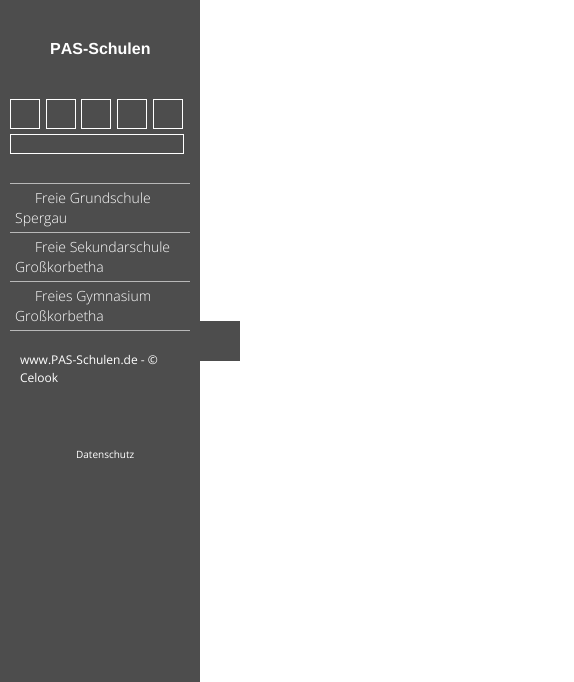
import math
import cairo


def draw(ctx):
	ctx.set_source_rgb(1, 1, 1)
	ctx.paint()
	ctx.set_source_rgb(0.302, 0.302, 0.302)
	ctx.rectangle(0, 0, 200, 682)
	ctx.fill()
	ctx.select_font_face('Liberation Sans', cairo.FONT_SLANT_NORMAL, cairo.FONT_WEIGHT_BOLD)
	ctx.set_font_size(16)
	ctx.set_source_rgb(1, 1, 1)
	ctx.move_to(50, 54)
	ctx.show_text('PAS-Schulen')
	ctx.rectangle(10.5, 99.5, 29, 29)
	ctx.set_line_width(1)
	ctx.stroke()
	ctx.rectangle(46.5, 99.5, 29, 29)
	ctx.stroke()
	ctx.rectangle(81.5, 99.5, 29, 29)
	ctx.stroke()
	ctx.rectangle(117.5, 99.5, 29, 29)
	ctx.stroke()
	ctx.rectangle(153.5, 99.5, 29, 29)
	ctx.stroke()
	ctx.rectangle(10.5, 134.5, 173, 19)
	ctx.stroke()
	ctx.set_source_rgb(0.722, 0.722, 0.722)
	ctx.rectangle(10, 183, 180, 1)
	ctx.fill()
	ctx.select_font_face('Open Sans Light')
	ctx.set_font_size(14)
	ctx.set_source_rgb(1, 1, 1)
	ctx.move_to(35, 203)
	ctx.show_text('Freie Grundschule')
	ctx.move_to(15, 223)
	ctx.show_text('Spergau')
	ctx.set_source_rgb(0.722, 0.722, 0.722)
	ctx.rectangle(10, 232, 180, 1)
	ctx.fill()
	ctx.set_source_rgb(1, 1, 1)
	ctx.move_to(35, 252)
	ctx.show_text('Freie Sekundarschule')
	ctx.move_to(15, 272)
	ctx.show_text('Großkorbetha')
	ctx.set_source_rgb(0.722, 0.722, 0.722)
	ctx.rectangle(10, 281, 180, 1)
	ctx.fill()
	ctx.rectangle(10, 330, 180, 1)
	ctx.fill()
	ctx.set_source_rgb(1, 1, 1)
	ctx.move_to(35, 301)
	ctx.show_text('Freies Gymnasium')
	ctx.move_to(15, 321)
	ctx.show_text('Großkorbetha')
	ctx.select_font_face('Open Sans')
	ctx.set_font_size(12)
	ctx.move_to(20, 364)
	ctx.show_text('www.PAS-Schulen.de - ©')
	ctx.move_to(20, 382)
	ctx.show_text('Celook')
	ctx.set_font_size(10)
	ctx.move_to(76, 458)
	ctx.show_text('Datenschutz')
	ctx.set_source_rgb(0.302, 0.302, 0.302)
	ctx.rectangle(200, 321, 40, 40)
	ctx.fill()


surface = cairo.ImageSurface(cairo.FORMAT_RGB24, 574, 682)
ctx = cairo.Context(surface)
options = cairo.FontOptions()
options.set_hint_metrics(cairo.HINT_METRICS_OFF)
options.set_hint_style(cairo.HINT_STYLE_NONE)
ctx.set_font_options(options)
ctx.set_miter_limit(4)
draw(ctx)
surface.write_to_png('image.png')
